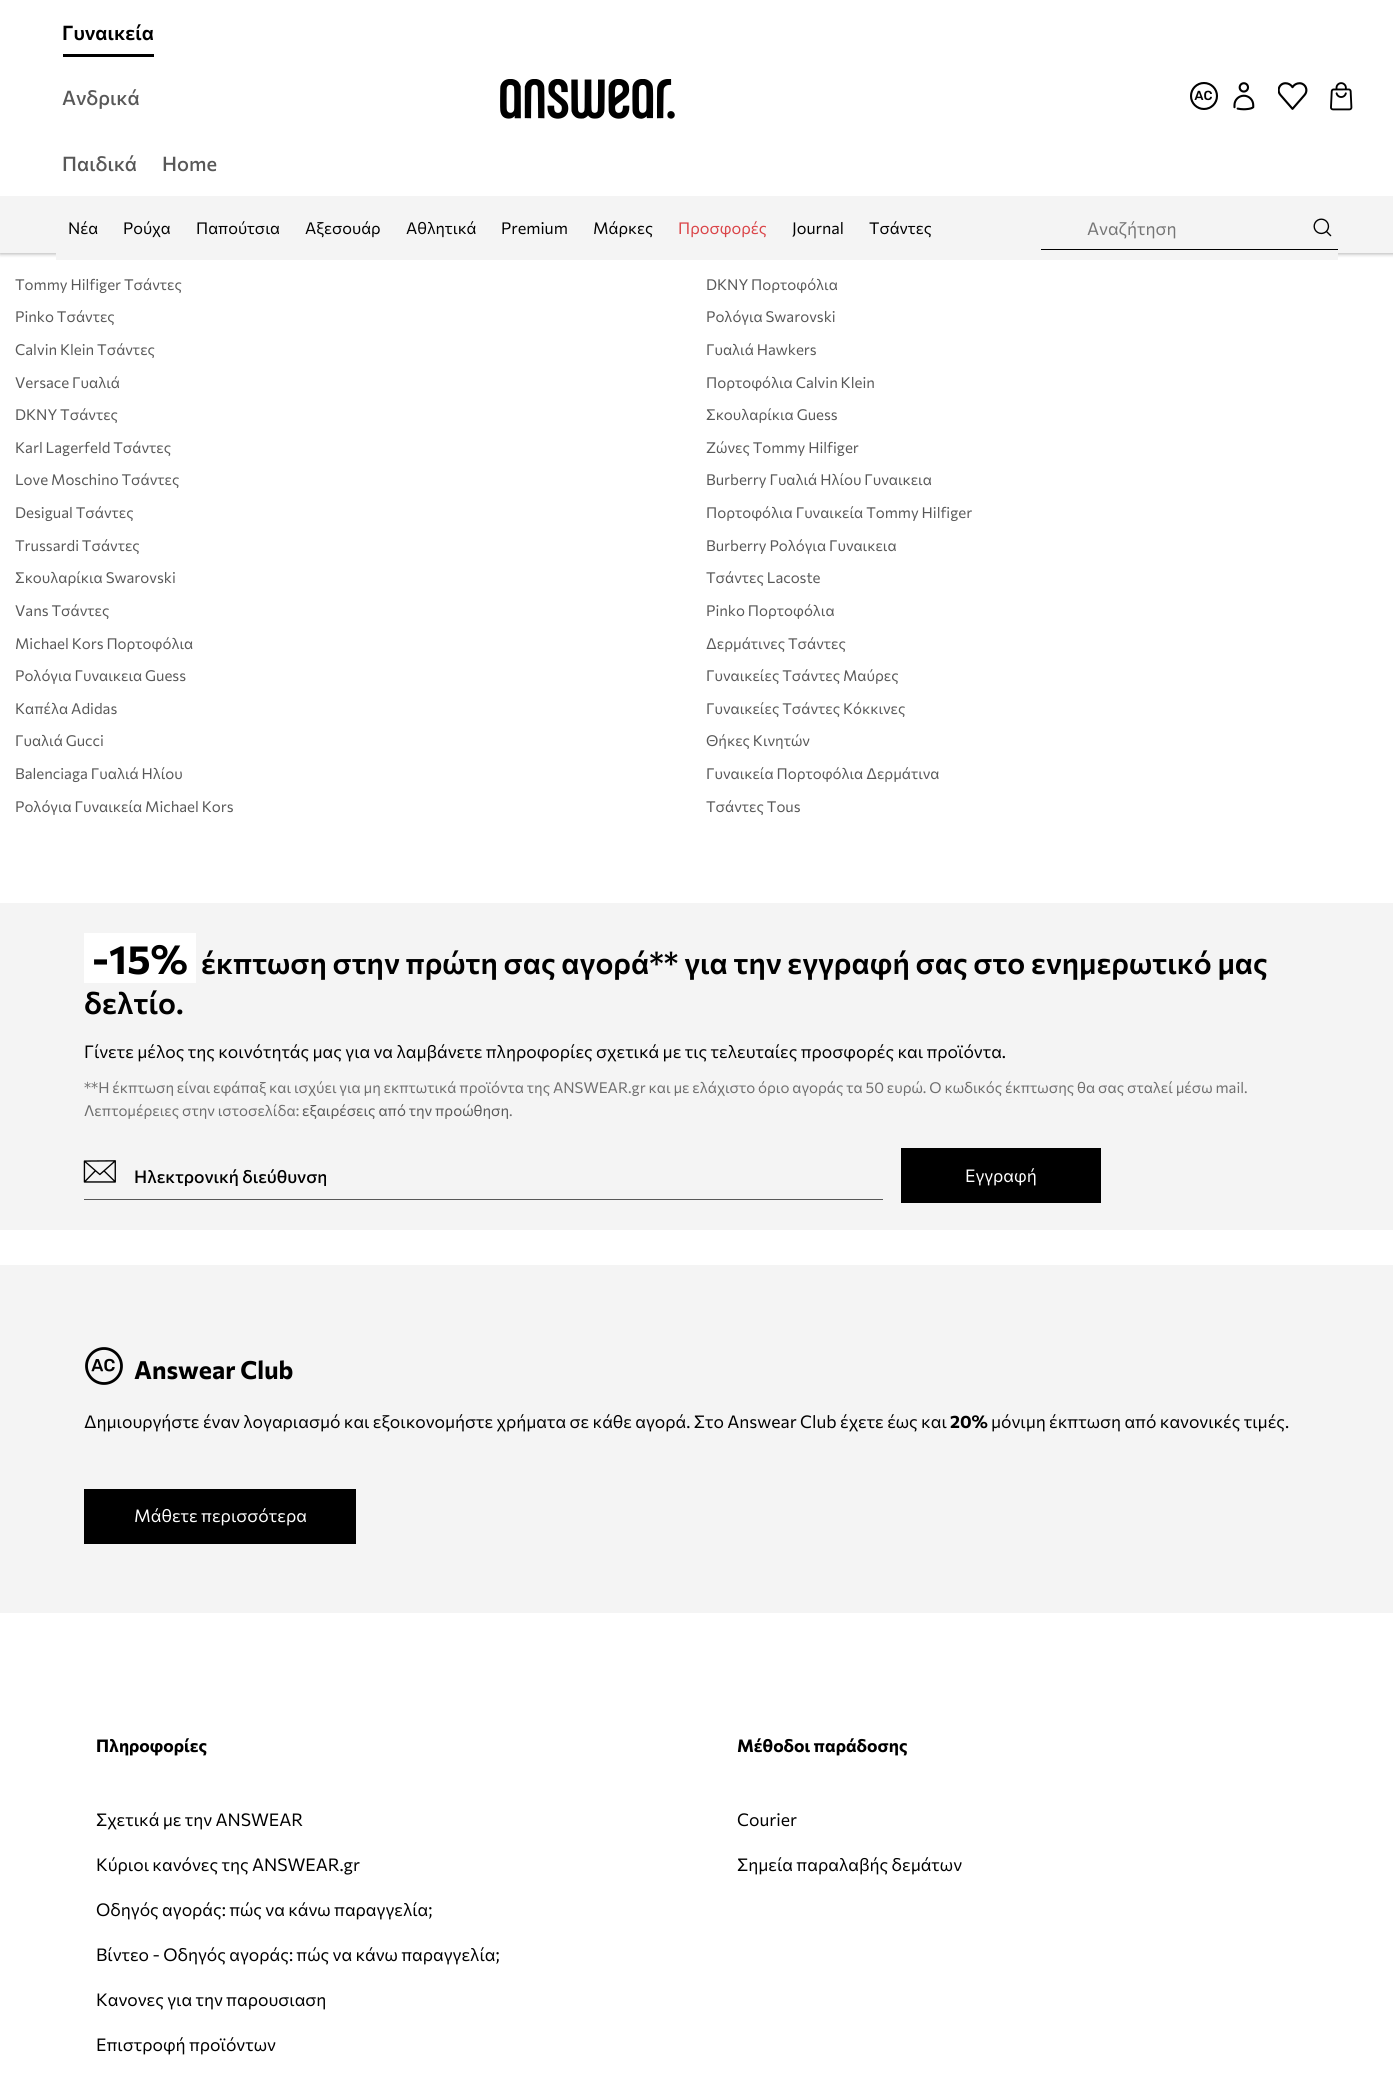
import math
import cairo


def round_path(ctx, x, y, w, h, r):
	ctx.new_sub_path()
	for i, (u, v) in enumerate([(x + w - r, y + h - r), (x + r, y + h - r), (x + r, y + r), (x + w - r, y + r)]):
		ctx.arc(u, v, r, i * math.pi / 2, (i + 1) * math.pi / 2)
	ctx.close_path()

def blur_box(ctx, x, y, w, h, r, blur, alpha):
	ctx.push_group_with_content(cairo.CONTENT_ALPHA)
	ctx.set_operator(cairo.OPERATOR_SOURCE)
	for i in range(15, -16, -2):
		e = blur * i / 6
		if min(w, h) + 2 * e > 0:
			ctx.set_source_rgba(0, 0, 0, alpha * math.erfc((i - 1) / 8.5) / 2)
			round_path(ctx, x - e, y - e, w + 2 * e, h + 2 * e, max(0, min(r + e + blur * .6, min(w, h) / 2 + e)))
			ctx.fill()
	ctx.mask(ctx.pop_group())

def paste(ctx, path, x, y, w, h):
	ctx.save()
	ctx.set_source_surface(cairo.ImageSurface.create_from_png(path), x, y)
	ctx.rectangle(x, y, w, h)
	ctx.fill()
	ctx.restore()

def draw(ctx):
	ctx.set_source_rgb(1, 1, 1)
	ctx.paint()
	ctx.set_source_rgb(0, 0, 0)
	blur_box(ctx, 0, 1, 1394, 253, 0, 2, 0.3)
	ctx.set_source_rgb(1, 1, 1)
	ctx.rectangle(0, 0, 1393, 196)
	ctx.fill()
	ctx.select_font_face('Commissioner SemiBold')
	ctx.set_font_size(20)
	ctx.set_source_rgb(0, 0, 0)
	ctx.move_to(62, 40)
	ctx.show_text('Γυναικεία')
	ctx.rectangle(63, 54, 91, 3)
	ctx.fill()
	ctx.select_font_face('Commissioner Medium')
	ctx.set_source_rgb(0.345, 0.345, 0.345)
	for x, y, s in [
		(62, 105, 'Ανδρικά'),
		(62, 171, 'Παιδικά'),
		(162, 171, 'Home'),
	]:
		ctx.move_to(x, y)
		ctx.show_text(s)
	paste(ctx, 'media/1.png', 500, 79, 175, 40)
	paste(ctx, 'media/2.png', 1190, 82, 28, 28)
	paste(ctx, 'media/3.png', 1233, 82, 22, 29)
	paste(ctx, 'media/4.png', 1278, 82, 30, 28)
	paste(ctx, 'media/5.png', 1330, 82, 23, 29)
	ctx.set_source_rgb(0.957, 0.957, 0.957)
	ctx.rectangle(0, 196, 1393, 57)
	ctx.fill()
	ctx.rectangle(56, 253, 1282, 7)
	ctx.fill()
	ctx.select_font_face('Commissioner')
	ctx.set_font_size(16.25)
	ctx.set_source_rgb(0, 0, 0)
	for x, y, s in [
		(68, 234, 'Νέα'),
		(123, 234, 'Ρούχα'),
		(196, 234, 'Παπούτσια'),
		(305, 234, 'Αξεσουάρ'),
		(406, 234, 'Αθλητικά'),
		(501, 234, 'Premium'),
		(593, 234, 'Μάρκες'),
	]:
		ctx.move_to(x, y)
		ctx.show_text(s)
	ctx.set_source_rgb(0.855, 0.267, 0.282)
	ctx.move_to(678, 234)
	ctx.show_text('Προσφορές')
	ctx.set_source_rgb(0, 0, 0)
	ctx.move_to(792, 234)
	ctx.show_text('Journal')
	ctx.move_to(869, 234)
	ctx.show_text('Τσάντες')
	ctx.rectangle(1041, 249, 297, 1)
	ctx.fill()
	ctx.set_font_size(17.5)
	ctx.set_source_rgb(0.459, 0.459, 0.459)
	ctx.move_to(1087, 235)
	ctx.show_text('Αναζήτηση')
	paste(ctx, 'media/6.png', 1313, 218, 19, 19)
	ctx.set_font_size(15)
	ctx.set_source_rgb(0.345, 0.345, 0.345)
	for x, y, s in [
		(15, 290, 'Tommy Hilfiger Τσάντες'),
		(706, 290, 'DKNY Πορτοφόλια'),
		(15, 322, 'Pinko Τσάντες'),
		(706, 322, 'Ρολόγια Swarovski'),
		(15, 355, 'Calvin Klein Τσάντες'),
		(706, 355, 'Γυαλιά Hawkers'),
		(15, 388, 'Versace Γυαλιά'),
		(706, 388, 'Πορτοφόλια Calvin Klein'),
		(15, 420, 'DKNY Τσάντες'),
		(706, 420, 'Σκουλαρίκια Guess'),
		(15, 453, 'Karl Lagerfeld Τσάντες'),
		(706, 453, 'Ζώνες Tommy Hilfiger'),
		(15, 485, 'Love Moschino Τσάντες'),
		(706, 485, 'Burberry Γυαλιά Ηλίου Γυναικεια'),
		(15, 518, 'Desigual Τσάντες'),
		(706, 518, 'Πορτοφόλια Γυναικεία Tommy Hilfiger'),
		(15, 551, 'Trussardi Τσάντες'),
		(706, 551, 'Burberry Ρολόγια Γυναικεια'),
		(15, 583, 'Σκουλαρίκια Swarovski'),
		(706, 583, 'Τσάντες Lacoste'),
		(15, 616, 'Vans Τσάντες'),
		(706, 616, 'Pinko Πορτοφόλια'),
		(15, 649, 'Michael Kors Πορτοφόλια'),
		(706, 649, 'Δερμάτινες Τσάντες'),
		(15, 681, 'Ρολόγια Γυναικεια Guess'),
		(706, 681, 'Γυναικείες Τσάντες Μαύρες'),
		(15, 714, 'Καπέλα Adidas'),
		(706, 714, 'Γυναικείες Τσάντες Κόκκινες'),
		(15, 746, 'Γυαλιά Gucci'),
		(706, 746, 'Θήκες Κινητών'),
		(15, 779, 'Balenciaga Γυαλιά Ηλίου'),
		(706, 779, 'Γυναικεία Πορτοφόλια Δερμάτινα'),
		(15, 812, 'Ρολόγια Γυναικεία Michael Kors'),
		(706, 812, 'Τσάντες Tous'),
	]:
		ctx.move_to(x, y)
		ctx.show_text(s)
	ctx.set_source_rgb(0.957, 0.957, 0.957)
	ctx.rectangle(0, 903, 1393, 327)
	ctx.fill()
	ctx.set_source_rgb(1, 1, 1)
	ctx.rectangle(84, 933, 112, 50)
	ctx.fill()
	ctx.select_font_face('Commissioner', cairo.FONT_SLANT_NORMAL, cairo.FONT_WEIGHT_BOLD)
	ctx.set_font_size(40)
	ctx.set_source_rgb(0, 0, 0)
	ctx.move_to(92, 974)
	ctx.show_text('-15%')
	ctx.select_font_face('Commissioner SemiBold')
	ctx.set_font_size(30)
	ctx.move_to(201, 974)
	ctx.show_text('έκπτωση στην πρώτη σας αγορά** για την εγγραφή σας στο ενημερωτικό μας')
	ctx.move_to(84, 1014)
	ctx.show_text('δελτίο.')
	ctx.select_font_face('Commissioner')
	ctx.set_font_size(17.5)
	ctx.move_to(84, 1058)
	ctx.show_text('Γίνετε μέλος της κοινότητάς μας για να λαμβάνετε πληροφορίες σχετικά με τις τελευταίες προσφορές και προϊόντα.')
	ctx.set_font_size(15)
	ctx.set_source_rgb(0.431, 0.431, 0.431)
	ctx.move_to(84, 1093)
	ctx.show_text('**Η έκπτωση είναι εφάπαξ και ισχύει για μη εκπτωτικά προϊόντα της ANSWEAR.gr και με ελάχιστο όριο αγοράς τα 50 ευρώ. Ο κωδικός έκπτωσης θα σας σταλεί μέσω mail.')
	ctx.move_to(84, 1116)
	ctx.show_text('Λεπτομέρειες στην ιστοσελίδα:')
	ctx.set_source_rgb(0.345, 0.345, 0.345)
	ctx.move_to(302, 1116)
	ctx.show_text('εξαιρέσεις από την προώθηση')
	ctx.set_source_rgb(0.431, 0.431, 0.431)
	ctx.move_to(509, 1116)
	ctx.show_text('.')
	paste(ctx, 'media/7.png', 83, 1160, 33, 23)
	ctx.set_source_rgb(0.345, 0.345, 0.345)
	ctx.rectangle(84, 1199, 799, 1)
	ctx.fill()
	ctx.save()
	ctx.rectangle(134, 1165, 746, 21)
	ctx.clip()
	ctx.select_font_face('Commissioner Medium')
	ctx.set_font_size(17.5)
	ctx.set_source_rgb(0, 0, 0)
	ctx.move_to(134, 1183)
	ctx.show_text('Ηλεκτρονική διεύθυνση')
	ctx.restore()
	ctx.set_source_rgb(0, 0, 0)
	ctx.rectangle(901, 1148, 200, 55)
	ctx.fill()
	ctx.set_font_size(17.5)
	ctx.set_source_rgb(1, 1, 1)
	ctx.move_to(965, 1182)
	ctx.show_text('Εγγραφή')
	ctx.set_source_rgb(0.957, 0.957, 0.957)
	ctx.rectangle(0, 1265, 1393, 348)
	ctx.fill()
	paste(ctx, 'media/8.png', 85, 1347, 38, 38)
	ctx.select_font_face('Commissioner', cairo.FONT_SLANT_NORMAL, cairo.FONT_WEIGHT_BOLD)
	ctx.set_font_size(25)
	ctx.set_source_rgb(0, 0, 0)
	ctx.move_to(134, 1379)
	ctx.show_text('Answear Club')
	ctx.select_font_face('Commissioner')
	ctx.set_font_size(17.5)
	ctx.move_to(84, 1428)
	ctx.show_text('Δημιουργήστε έναν λογαριασμό και εξοικονομήστε χρήματα σε κάθε αγορά. Στο Answear Club έχετε έως και')
	ctx.select_font_face('Commissioner', cairo.FONT_SLANT_NORMAL, cairo.FONT_WEIGHT_BOLD)
	ctx.move_to(950, 1428)
	ctx.show_text('20%')
	ctx.select_font_face('Commissioner')
	ctx.move_to(991, 1428)
	ctx.show_text('μόνιμη έκπτωση από κανονικές τιμές.')
	ctx.rectangle(84, 1489, 272, 55)
	ctx.fill()
	ctx.set_source_rgb(1, 1, 1)
	ctx.move_to(134, 1522)
	ctx.show_text('Μάθετε περισσότερα')
	ctx.select_font_face('Commissioner', cairo.FONT_SLANT_NORMAL, cairo.FONT_WEIGHT_BOLD)
	ctx.set_source_rgb(0, 0, 0)
	ctx.move_to(96, 1752)
	ctx.show_text('Πληροφορίες')
	ctx.select_font_face('Commissioner')
	for x, y, s in [
		(96, 1826, 'Σχετικά με την ANSWEAR'),
		(96, 1871, 'Κύριοι κανόνες της ANSWEAR.gr'),
		(96, 1916, 'Οδηγός αγοράς: πώς να κάνω παραγγελία;'),
		(96, 1961, 'Βίντεο - Οδηγός αγοράς: πώς να κάνω παραγγελία;'),
		(96, 2006, 'Κανονες για την παρουσιαση'),
		(96, 2051, 'Επιστροφή προϊόντων'),
	]:
		ctx.move_to(x, y)
		ctx.show_text(s)
	ctx.select_font_face('Commissioner', cairo.FONT_SLANT_NORMAL, cairo.FONT_WEIGHT_BOLD)
	ctx.move_to(737, 1752)
	ctx.show_text('Μέθοδοι παράδοσης')
	ctx.select_font_face('Commissioner')
	ctx.move_to(737, 1826)
	ctx.show_text('Courier')
	ctx.move_to(737, 1871)
	ctx.show_text('Σημεία παραλαβής δεμάτων')


surface = cairo.ImageSurface(cairo.FORMAT_RGB24, 1393, 2092)
ctx = cairo.Context(surface)
options = cairo.FontOptions()
options.set_hint_metrics(cairo.HINT_METRICS_OFF)
options.set_hint_style(cairo.HINT_STYLE_NONE)
ctx.set_font_options(options)
ctx.set_miter_limit(4)
draw(ctx)
surface.write_to_png('image.png')
